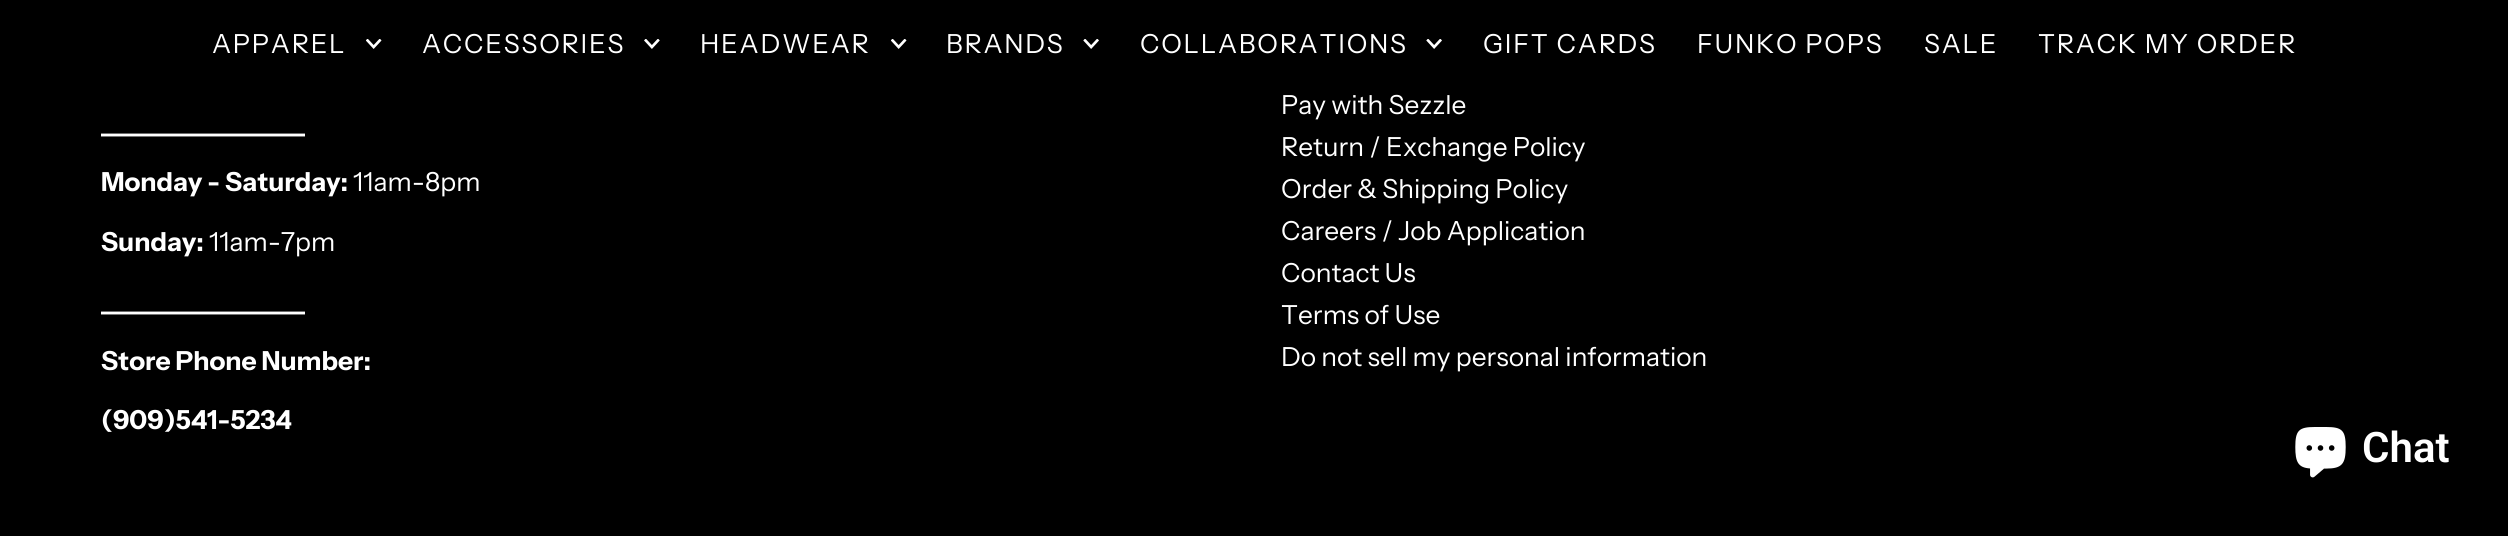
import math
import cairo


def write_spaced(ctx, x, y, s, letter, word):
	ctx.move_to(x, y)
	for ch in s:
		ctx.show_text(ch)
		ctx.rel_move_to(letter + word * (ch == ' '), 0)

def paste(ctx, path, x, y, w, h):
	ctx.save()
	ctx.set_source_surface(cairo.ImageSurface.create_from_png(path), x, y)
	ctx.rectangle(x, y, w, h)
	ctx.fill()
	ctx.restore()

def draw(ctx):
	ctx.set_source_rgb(0, 0, 0)
	ctx.paint()
	ctx.select_font_face('Instrument Sans')
	ctx.set_font_size(26.25)
	ctx.set_source_rgb(1, 1, 1)
	write_spaced(ctx, 212, 53, 'APPAREL', 1.75, 0)
	paste(ctx, 'media/1.png', 366, 39, 16, 10)
	write_spaced(ctx, 422, 53, 'ACCESSORIES', 1.75, 0)
	paste(ctx, 'media/2.png', 644, 39, 16, 10)
	write_spaced(ctx, 700, 53, 'HEADWEAR', 1.75, 0)
	paste(ctx, 'media/1.png', 891, 39, 16, 10)
	write_spaced(ctx, 946, 53, 'BRANDS', 1.75, 0)
	paste(ctx, 'media/3.png', 1083, 39, 16, 10)
	write_spaced(ctx, 1140, 53, 'COLLABORATIONS', 1.75, 0)
	paste(ctx, 'media/3.png', 1426, 39, 16, 10)
	for x, y, s in [
		(1483, 53, 'GIFT CARDS'),
		(1697, 53, 'FUNKO POPS'),
		(1924, 53, 'SALE'),
		(2038, 53, 'TRACK MY ORDER'),
	]:
		write_spaced(ctx, x, y, s, 1.75, 0)
	ctx.select_font_face('Instrument Sans', cairo.FONT_SLANT_NORMAL, cairo.FONT_WEIGHT_BOLD)
	ctx.move_to(101, 132)
	ctx.show_text('________________')
	ctx.move_to(101, 191)
	ctx.show_text('Monday - Saturday:')
	ctx.select_font_face('Instrument Sans')
	ctx.move_to(353, 191)
	ctx.show_text('11am-8pm')
	ctx.select_font_face('Instrument Sans', cairo.FONT_SLANT_NORMAL, cairo.FONT_WEIGHT_BOLD)
	ctx.move_to(101, 251)
	ctx.show_text('Sunday:')
	ctx.select_font_face('Instrument Sans')
	ctx.move_to(209, 251)
	ctx.show_text('11am-7pm')
	ctx.select_font_face('Instrument Sans', cairo.FONT_SLANT_NORMAL, cairo.FONT_WEIGHT_BOLD)
	for x, y, s in [
		(101, 310, '________________'),
		(101, 370, 'Store Phone Number:'),
		(101, 429, '(909)541-5234'),
	]:
		ctx.move_to(x, y)
		ctx.show_text(s)
	ctx.select_font_face('Instrument Sans')
	for x, y, s in [
		(1281, 114, 'Pay with Sezzle'),
		(1281, 156, 'Return / Exchange Policy'),
		(1281, 198, 'Order & Shipping Policy'),
		(1281, 240, 'Careers / Job Application'),
		(1281, 282, 'Contact Us'),
		(1281, 324, 'Terms of Use'),
		(1281, 366, 'Do not sell my personal information'),
	]:
		ctx.move_to(x, y)
		ctx.show_text(s)
	paste(ctx, 'media/4.png', 2295, 427, 51, 51)
	ctx.select_font_face('Roboto SemiBold')
	ctx.set_font_size(42)
	ctx.move_to(2362, 462)
	ctx.show_text('Chat')


surface = cairo.ImageSurface(cairo.FORMAT_RGB24, 2508, 536)
ctx = cairo.Context(surface)
options = cairo.FontOptions()
options.set_hint_metrics(cairo.HINT_METRICS_OFF)
options.set_hint_style(cairo.HINT_STYLE_NONE)
ctx.set_font_options(options)
ctx.set_miter_limit(4)
draw(ctx)
surface.write_to_png('image.png')
